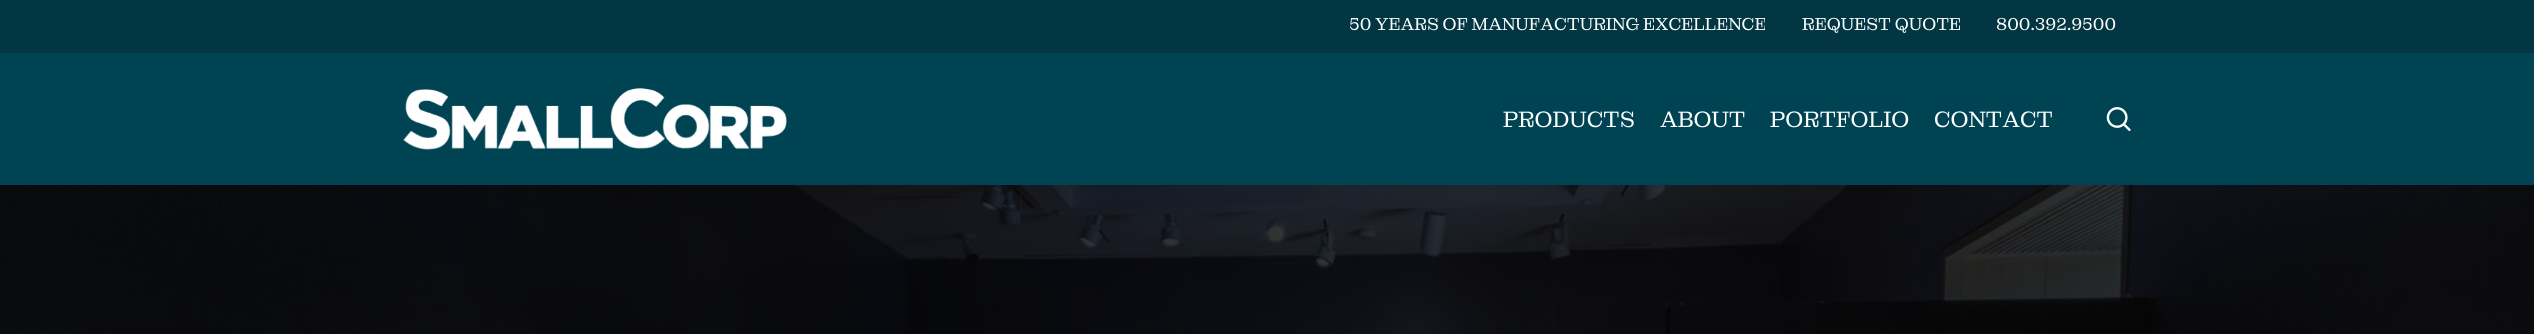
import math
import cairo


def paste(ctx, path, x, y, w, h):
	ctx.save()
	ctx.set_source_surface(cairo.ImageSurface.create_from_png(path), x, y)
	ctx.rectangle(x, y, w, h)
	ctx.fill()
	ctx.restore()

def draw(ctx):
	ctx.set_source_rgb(0, 0.263, 0.322)
	ctx.paint()
	ctx.set_source_rgb(0.004, 0.212, 0.259)
	ctx.rectangle(0, 0, 2534, 53)
	ctx.fill()
	ctx.select_font_face('Montagu Slab')
	ctx.set_font_size(17.5)
	ctx.set_source_rgb(1, 1, 1)
	for x, y, s in [
		(1349, 30, '50 YEARS OF MANUFACTURING EXCELLENCE'),
		(1802, 30, 'REQUEST QUOTE'),
		(1996, 30, '800.392.9500'),
	]:
		ctx.move_to(x, y)
		ctx.show_text(s)
	paste(ctx, 'media/1.png', 403, 88, 384, 62)
	ctx.set_font_size(22.5)
	for x, y, s in [
		(1503, 127, 'PRODUCTS'),
		(1660, 127, 'ABOUT'),
		(1770, 127, 'PORTFOLIO'),
		(1934, 127, 'CONTACT'),
	]:
		ctx.move_to(x, y)
		ctx.show_text(s)
	paste(ctx, 'media/2.png', 2106, 107, 25, 25)
	paste(ctx, 'media/3.png', 0, 185, 2534, 149)


surface = cairo.ImageSurface(cairo.FORMAT_RGB24, 2534, 334)
ctx = cairo.Context(surface)
options = cairo.FontOptions()
options.set_hint_metrics(cairo.HINT_METRICS_OFF)
options.set_hint_style(cairo.HINT_STYLE_NONE)
ctx.set_font_options(options)
ctx.set_miter_limit(4)
draw(ctx)
surface.write_to_png('image.png')
